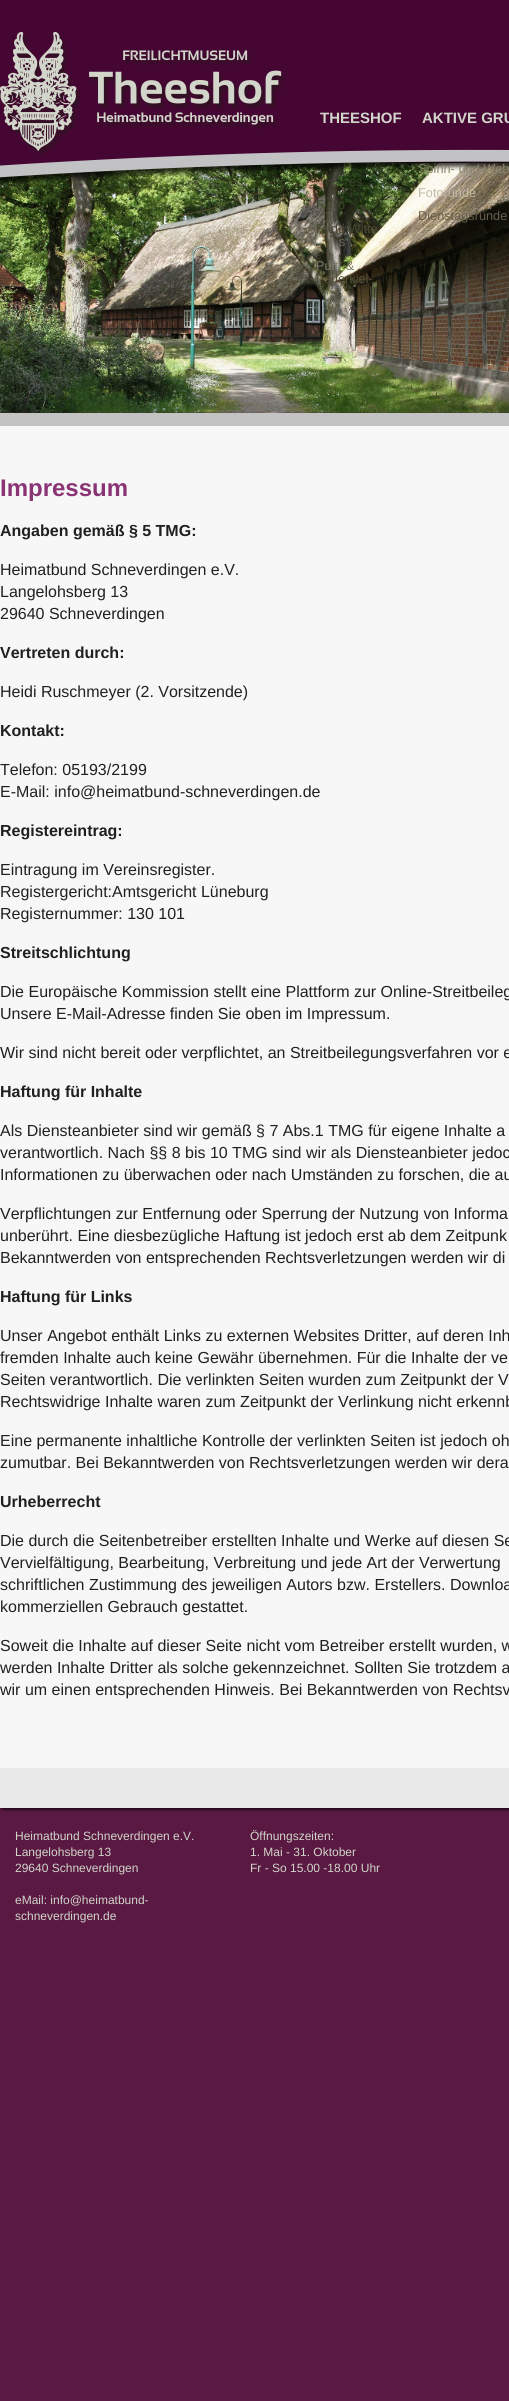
import math
import cairo


def round_path(ctx, x, y, w, h, r):
	ctx.new_sub_path()
	for i, (u, v) in enumerate([(x + w - r, y + h - r), (x + r, y + h - r), (x + r, y + r), (x + w - r, y + r)]):
		ctx.arc(u, v, r, i * math.pi / 2, (i + 1) * math.pi / 2)
	ctx.close_path()

def blur_box(ctx, x, y, w, h, r, blur, alpha):
	ctx.push_group_with_content(cairo.CONTENT_ALPHA)
	ctx.set_operator(cairo.OPERATOR_SOURCE)
	for i in range(15, -16, -2):
		e = blur * i / 6
		if min(w, h) + 2 * e > 0:
			ctx.set_source_rgba(0, 0, 0, alpha * math.erfc((i - 1) / 8.5) / 2)
			round_path(ctx, x - e, y - e, w + 2 * e, h + 2 * e, max(0, min(r + e + blur * .6, min(w, h) / 2 + e)))
			ctx.fill()
	ctx.mask(ctx.pop_group())

def paste(ctx, path, x, y, w, h):
	ctx.save()
	ctx.set_source_surface(cairo.ImageSurface.create_from_png(path), x, y)
	ctx.rectangle(x, y, w, h)
	ctx.fill()
	ctx.restore()

def draw(ctx):
	ctx.set_source_rgb(0.353, 0.098, 0.259)
	ctx.paint()
	paste(ctx, 'media/3.png', 0, 163, 509, 250)
	paste(ctx, 'media/1.png', 0, 0, 509, 186)
	paste(ctx, 'media/2.png', 0, 32, 285, 123)
	ctx.select_font_face('Liberation Sans', cairo.FONT_SLANT_NORMAL, cairo.FONT_WEIGHT_BOLD)
	ctx.set_font_size(15)
	ctx.set_source_rgb(0.824, 0.835, 0.792)
	ctx.move_to(320, 123)
	ctx.show_text('THEESHOF')
	ctx.select_font_face('Liberation Sans')
	ctx.set_font_size(12.75)
	ctx.set_source_rgb(0.231, 0.275, 0.165)
	for x, y, s in [
		(325, 186, 't'),
		(349, 186, 'es'),
		(316, 209, 'F'),
		(338, 209, 'o'),
	]:
		ctx.move_to(x, y)
		ctx.show_text(s)
	ctx.set_source_rgb(0.29, 0.286, 0.22)
	ctx.move_to(316, 233)
	ctx.show_text('Frido Witte')
	ctx.set_source_rgb(0.42, 0.408, 0.349)
	ctx.move_to(339, 246)
	ctx.show_text('s')
	ctx.set_source_rgb(0.482, 0.49, 0.416)
	ctx.move_to(316, 270)
	ctx.show_text('Pult- &')
	ctx.set_source_rgb(0.325, 0.306, 0.227)
	ctx.move_to(316, 283)
	ctx.show_text('Federkiel-')
	ctx.set_source_rgb(0.29, 0.286, 0.22)
	ctx.move_to(369, 295)
	ctx.show_text('I')
	ctx.select_font_face('Liberation Sans', cairo.FONT_SLANT_NORMAL, cairo.FONT_WEIGHT_BOLD)
	ctx.set_font_size(15)
	ctx.set_source_rgb(0.824, 0.835, 0.792)
	ctx.move_to(422, 123)
	ctx.show_text('AKTIVE GRU')
	ctx.select_font_face('Liberation Sans')
	ctx.set_font_size(12.75)
	ctx.set_source_rgb(0.537, 0.522, 0.439)
	ctx.move_to(418, 173)
	ctx.show_text('Spinn- und Web')
	ctx.set_source_rgb(0.757, 0.722, 0.651)
	ctx.move_to(418, 197)
	ctx.show_text('Fotorunde')
	ctx.set_source_rgb(0.404, 0.369, 0.298)
	ctx.move_to(418, 220)
	ctx.show_text('Dienstagsrunde')
	ctx.set_source_rgb(0.455, 0.475, 0.329)
	ctx.move_to(450, 387)
	ctx.show_text('i')
	ctx.set_source_rgb(0.765, 0.765, 0.765)
	ctx.rectangle(0, 413, 509, 13)
	ctx.fill()
	ctx.set_source_rgb(0.965, 0.965, 0.965)
	ctx.rectangle(0, 426, 509, 1342)
	ctx.fill()
	ctx.select_font_face('Liberation Sans', cairo.FONT_SLANT_NORMAL, cairo.FONT_WEIGHT_BOLD)
	ctx.set_font_size(24)
	ctx.set_source_rgb(0.541, 0.204, 0.459)
	ctx.move_to(0, 496)
	ctx.show_text('Impressum')
	ctx.set_font_size(16)
	ctx.set_source_rgb(0.125, 0.125, 0.125)
	ctx.move_to(0, 536)
	ctx.show_text('Angaben gemäß § 5 TMG:')
	ctx.select_font_face('Liberation Sans')
	for x, y, s in [
		(0, 575, 'Heimatbund Schneverdingen e.V.'),
		(0, 597, 'Langelohsberg 13'),
		(0, 619, '29640 Schneverdingen'),
	]:
		ctx.move_to(x, y)
		ctx.show_text(s)
	ctx.select_font_face('Liberation Sans', cairo.FONT_SLANT_NORMAL, cairo.FONT_WEIGHT_BOLD)
	ctx.move_to(0, 658)
	ctx.show_text('Vertreten durch:')
	ctx.select_font_face('Liberation Sans')
	ctx.move_to(0, 697)
	ctx.show_text('Heidi Ruschmeyer (2. Vorsitzende)')
	ctx.select_font_face('Liberation Sans', cairo.FONT_SLANT_NORMAL, cairo.FONT_WEIGHT_BOLD)
	ctx.move_to(0, 736)
	ctx.show_text('Kontakt:')
	ctx.select_font_face('Liberation Sans')
	ctx.move_to(0, 775)
	ctx.show_text('Telefon: 05193/2199')
	ctx.move_to(0, 797)
	ctx.show_text('E-Mail: info@heimatbund-schneverdingen.de')
	ctx.select_font_face('Liberation Sans', cairo.FONT_SLANT_NORMAL, cairo.FONT_WEIGHT_BOLD)
	ctx.move_to(0, 836)
	ctx.show_text('Registereintrag:')
	ctx.select_font_face('Liberation Sans')
	for x, y, s in [
		(0, 875, 'Eintragung im Vereinsregister.'),
		(0, 897, 'Registergericht:Amtsgericht Lüneburg'),
		(0, 919, 'Registernummer: 130 101'),
	]:
		ctx.move_to(x, y)
		ctx.show_text(s)
	ctx.select_font_face('Liberation Sans', cairo.FONT_SLANT_NORMAL, cairo.FONT_WEIGHT_BOLD)
	ctx.move_to(0, 958)
	ctx.show_text('Streitschlichtung')
	ctx.select_font_face('Liberation Sans')
	for x, y, s in [
		(0, 997, 'Die Europäische Kommission stellt eine Plattform zur Online-Streitbeileg'),
		(0, 1019, 'Unsere E-Mail-Adresse finden Sie oben im Impressum.'),
		(0, 1058, 'Wir sind nicht bereit oder verpflichtet, an Streitbeilegungsverfahren vor e'),
	]:
		ctx.move_to(x, y)
		ctx.show_text(s)
	ctx.select_font_face('Liberation Sans', cairo.FONT_SLANT_NORMAL, cairo.FONT_WEIGHT_BOLD)
	ctx.move_to(0, 1097)
	ctx.show_text('Haftung für Inhalte')
	ctx.select_font_face('Liberation Sans')
	for x, y, s in [
		(0, 1136, 'Als Diensteanbieter sind wir gemäß § 7 Abs.1 TMG für eigene Inhalte a'),
		(0, 1158, 'verantwortlich. Nach §§ 8 bis 10 TMG sind wir als Diensteanbieter jedoc'),
		(0, 1180, 'Informationen zu überwachen oder nach Umständen zu forschen, die au'),
		(0, 1219, 'Verpflichtungen zur Entfernung oder Sperrung der Nutzung von Informa'),
		(0, 1241, 'unberührt. Eine diesbezügliche Haftung ist jedoch erst ab dem Zeitpunk'),
		(0, 1263, 'Bekanntwerden von entsprechenden Rechtsverletzungen werden wir di'),
	]:
		ctx.move_to(x, y)
		ctx.show_text(s)
	ctx.select_font_face('Liberation Sans', cairo.FONT_SLANT_NORMAL, cairo.FONT_WEIGHT_BOLD)
	ctx.move_to(0, 1302)
	ctx.show_text('Haftung für Links')
	ctx.select_font_face('Liberation Sans')
	for x, y, s in [
		(0, 1341, 'Unser Angebot enthält Links zu externen Websites Dritter, auf deren Inh'),
		(0, 1363, 'fremden Inhalte auch keine Gewähr übernehmen. Für die Inhalte der ve'),
		(0, 1385, 'Seiten verantwortlich. Die verlinkten Seiten wurden zum Zeitpunkt der V'),
		(0, 1407, 'Rechtswidrige Inhalte waren zum Zeitpunkt der Verlinkung nicht erkennb'),
		(0, 1446, 'Eine permanente inhaltliche Kontrolle der verlinkten Seiten ist jedoch oh'),
		(0, 1468, 'zumutbar. Bei Bekanntwerden von Rechtsverletzungen werden wir dera'),
	]:
		ctx.move_to(x, y)
		ctx.show_text(s)
	ctx.select_font_face('Liberation Sans', cairo.FONT_SLANT_NORMAL, cairo.FONT_WEIGHT_BOLD)
	ctx.move_to(0, 1507)
	ctx.show_text('Urheberrecht')
	ctx.select_font_face('Liberation Sans')
	for x, y, s in [
		(0, 1546, 'Die durch die Seitenbetreiber erstellten Inhalte und Werke auf diesen Se'),
		(0, 1568, 'Vervielfältigung, Bearbeitung, Verbreitung und jede Art der Verwertung'),
		(0, 1590, 'schriftlichen Zustimmung des jeweiligen Autors bzw. Erstellers. Downloa'),
		(0, 1612, 'kommerziellen Gebrauch gestattet.'),
		(0, 1651, 'Soweit die Inhalte auf dieser Seite nicht vom Betreiber erstellt wurden, w'),
		(0, 1673, 'werden Inhalte Dritter als solche gekennzeichnet. Sollten Sie trotzdem a'),
		(0, 1695, 'wir um einen entsprechenden Hinweis. Bei Bekanntwerden von Rechtsv'),
	]:
		ctx.move_to(x, y)
		ctx.show_text(s)
	ctx.set_source_rgb(0, 0, 0)
	blur_box(ctx, 2, 1770, 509, 40, 0, 1, 0.58)
	ctx.set_source_rgb(0.914, 0.914, 0.914)
	ctx.rectangle(0, 1768, 509, 40)
	ctx.fill()
	ctx.set_font_size(12)
	ctx.set_source_rgb(0.824, 0.835, 0.792)
	for x, y, s in [
		(15, 1840, 'Heimatbund Schneverdingen e.V.'),
		(15, 1856, 'Langelohsberg 13'),
		(15, 1872, '29640 Schneverdingen'),
		(15, 1904, 'eMail: info@heimatbund-'),
		(15, 1920, 'schneverdingen.de'),
		(250, 1840, 'Öffnungszeiten:'),
		(250, 1856, '1. Mai - 31. Oktober'),
		(250, 1872, 'Fr - So 15.00 -18.00 Uhr'),
	]:
		ctx.move_to(x, y)
		ctx.show_text(s)


surface = cairo.ImageSurface(cairo.FORMAT_RGB24, 509, 2401)
ctx = cairo.Context(surface)
options = cairo.FontOptions()
options.set_hint_metrics(cairo.HINT_METRICS_OFF)
options.set_hint_style(cairo.HINT_STYLE_NONE)
ctx.set_font_options(options)
ctx.set_miter_limit(4)
draw(ctx)
surface.write_to_png('image.png')
